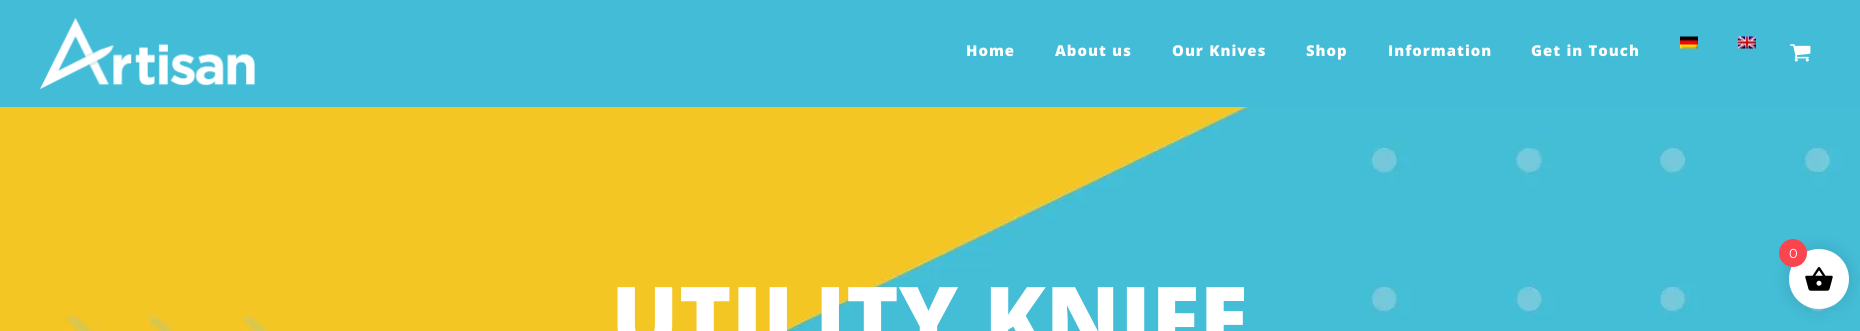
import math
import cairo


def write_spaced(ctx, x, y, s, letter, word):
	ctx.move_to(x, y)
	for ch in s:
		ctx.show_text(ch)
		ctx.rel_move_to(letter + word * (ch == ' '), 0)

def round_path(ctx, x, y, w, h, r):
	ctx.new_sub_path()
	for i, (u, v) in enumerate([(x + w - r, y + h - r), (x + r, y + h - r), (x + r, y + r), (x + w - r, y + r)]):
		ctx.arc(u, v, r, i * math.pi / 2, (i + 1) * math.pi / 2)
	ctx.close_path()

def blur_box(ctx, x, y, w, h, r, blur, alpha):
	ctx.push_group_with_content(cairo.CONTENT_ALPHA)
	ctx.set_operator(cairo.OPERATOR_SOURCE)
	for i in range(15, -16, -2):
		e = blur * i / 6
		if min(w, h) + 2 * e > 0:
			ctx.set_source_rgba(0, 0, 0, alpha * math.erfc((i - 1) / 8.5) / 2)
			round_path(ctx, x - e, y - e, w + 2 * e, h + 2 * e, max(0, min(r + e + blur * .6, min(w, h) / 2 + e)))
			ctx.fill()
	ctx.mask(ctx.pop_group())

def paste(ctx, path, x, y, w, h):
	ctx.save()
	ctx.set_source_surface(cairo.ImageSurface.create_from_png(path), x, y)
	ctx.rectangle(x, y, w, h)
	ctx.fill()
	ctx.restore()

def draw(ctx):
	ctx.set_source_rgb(1, 1, 1)
	ctx.paint()
	ctx.set_source_rgb(0.263, 0.741, 0.843)
	ctx.rectangle(0, 0, 1860, 107)
	ctx.fill()
	paste(ctx, 'media/1.png', 40, 18, 215, 71)
	paste(ctx, 'media/2.png', 1680, 36, 18, 13)
	paste(ctx, 'media/3.png', 1738, 36, 18, 13)
	ctx.select_font_face('Khula ExtraBold')
	ctx.set_font_size(16)
	ctx.set_source_rgb(1, 1, 1)
	for x, y, s in [
		(966, 56, 'Home'),
		(1055, 56, 'About us'),
		(1172, 56, 'Our Knives'),
		(1306, 56, 'Shop'),
		(1388, 56, 'Information'),
		(1531, 56, 'Get in Touch'),
	]:
		write_spaced(ctx, x, y, s, 1, 0)
	paste(ctx, 'media/4.png', 1790, 44, 21, 18)
	paste(ctx, 'media/5.png', 0, 107, 1860, 224)
	ctx.set_font_size(96)
	ctx.move_to(611, 351)
	ctx.show_text('UTILITY KNIFE')
	ctx.set_source_rgb(0, 0, 0)
	blur_box(ctx, 1787, 247, 64, 64, 32, 7.5, 0.1)
	ctx.set_source_rgb(1, 1, 1)
	ctx.arc(1819, 279, 30, 0, 2 * math.pi)
	ctx.fill()
	ctx.set_source_rgb(0.98, 0.271, 0.31)
	ctx.arc(1793, 253, 14, 0, 2 * math.pi)
	ctx.fill()
	ctx.select_font_face('Montserrat')
	ctx.set_font_size(13)
	ctx.set_source_rgb(1, 1, 1)
	ctx.move_to(1789, 258)
	ctx.show_text('0')
	paste(ctx, 'media/6.png', 1805, 267, 28, 24)


surface = cairo.ImageSurface(cairo.FORMAT_RGB24, 1860, 331)
ctx = cairo.Context(surface)
options = cairo.FontOptions()
options.set_hint_metrics(cairo.HINT_METRICS_OFF)
options.set_hint_style(cairo.HINT_STYLE_NONE)
ctx.set_font_options(options)
ctx.set_miter_limit(4)
draw(ctx)
surface.write_to_png('image.png')
